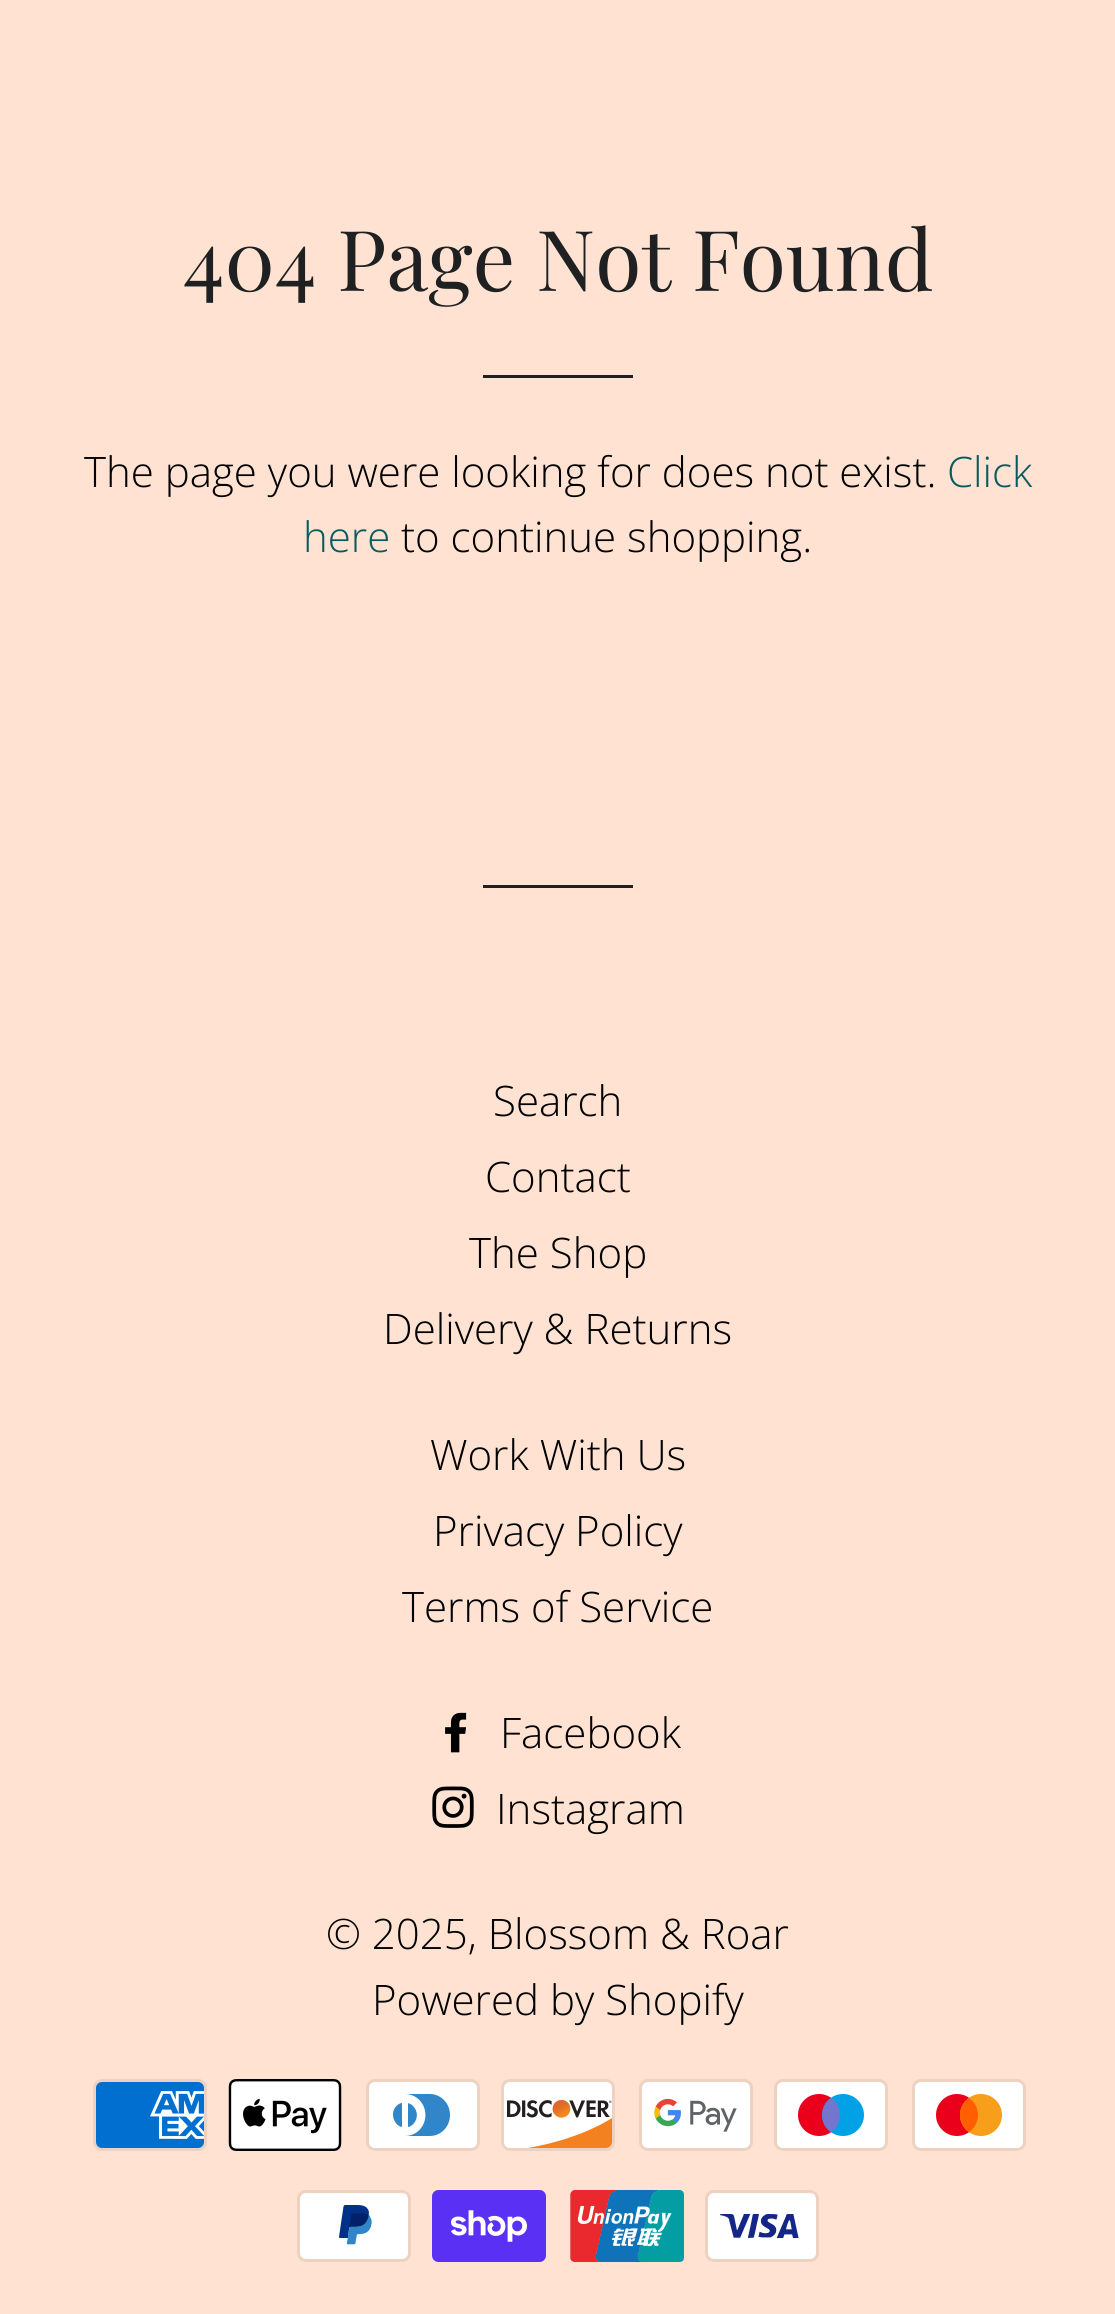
import math
import cairo


def paste(ctx, path, x, y, w, h):
	ctx.save()
	ctx.set_source_surface(cairo.ImageSurface.create_from_png(path), x, y)
	ctx.rectangle(x, y, w, h)
	ctx.fill()
	ctx.restore()

def draw(ctx):
	ctx.set_source_rgb(1, 0.886, 0.82)
	ctx.paint()
	ctx.select_font_face('Playfair Display')
	ctx.set_font_size(84)
	ctx.set_source_rgb(0.122, 0.125, 0.129)
	ctx.move_to(183, 291)
	ctx.show_text('404 Page Not Found')
	ctx.rectangle(483, 375, 150, 3)
	ctx.fill()
	ctx.select_font_face('Open Sans Light')
	ctx.set_font_size(42)
	ctx.set_source_rgb(0, 0, 0)
	ctx.move_to(84, 487)
	ctx.show_text('The page you were looking for does not exist.')
	ctx.set_source_rgb(0.02, 0.357, 0.376)
	ctx.move_to(947, 487)
	ctx.show_text('Click')
	ctx.move_to(303, 552)
	ctx.show_text('here')
	ctx.set_source_rgb(0, 0, 0)
	ctx.move_to(401, 552)
	ctx.show_text('to continue shopping.')
	ctx.set_source_rgb(0.122, 0.125, 0.129)
	ctx.rectangle(483, 885, 150, 3)
	ctx.fill()
	ctx.set_source_rgb(0, 0, 0)
	for x, y, s in [
		(493, 1116, 'Search'),
		(485, 1192, 'Contact'),
		(469, 1268, 'The Shop'),
		(383, 1344, 'Delivery & Returns'),
		(430, 1470, 'Work With Us'),
		(433, 1546, 'Privacy Policy'),
		(402, 1622, 'Terms of Service'),
	]:
		ctx.move_to(x, y)
		ctx.show_text(s)
	paste(ctx, 'media/1.png', 445, 1712, 22, 41)
	ctx.move_to(500, 1748)
	ctx.show_text('Facebook')
	paste(ctx, 'media/2.png', 432, 1786, 42, 42)
	for x, y, s in [
		(496, 1824, 'Instagram'),
		(326, 1949, '© 2025, Blossom & Roar'),
		(372, 2015, 'Powered by Shopify'),
	]:
		ctx.move_to(x, y)
		ctx.show_text(s)
	paste(ctx, 'media/3.png', 93, 2079, 114, 72)
	paste(ctx, 'media/4.png', 228, 2079, 114, 72)
	paste(ctx, 'media/5.png', 366, 2079, 114, 72)
	paste(ctx, 'media/6.png', 501, 2079, 114, 72)
	paste(ctx, 'media/7.png', 639, 2079, 114, 72)
	paste(ctx, 'media/8.png', 774, 2079, 114, 72)
	paste(ctx, 'media/9.png', 912, 2079, 114, 72)
	paste(ctx, 'media/10.png', 297, 2190, 114, 72)
	paste(ctx, 'media/11.png', 432, 2190, 114, 72)
	paste(ctx, 'media/12.png', 570, 2190, 114, 72)
	paste(ctx, 'media/13.png', 705, 2190, 114, 72)


surface = cairo.ImageSurface(cairo.FORMAT_RGB24, 1115, 2314)
ctx = cairo.Context(surface)
options = cairo.FontOptions()
options.set_hint_metrics(cairo.HINT_METRICS_OFF)
options.set_hint_style(cairo.HINT_STYLE_NONE)
ctx.set_font_options(options)
ctx.set_miter_limit(4)
draw(ctx)
surface.write_to_png('image.png')
